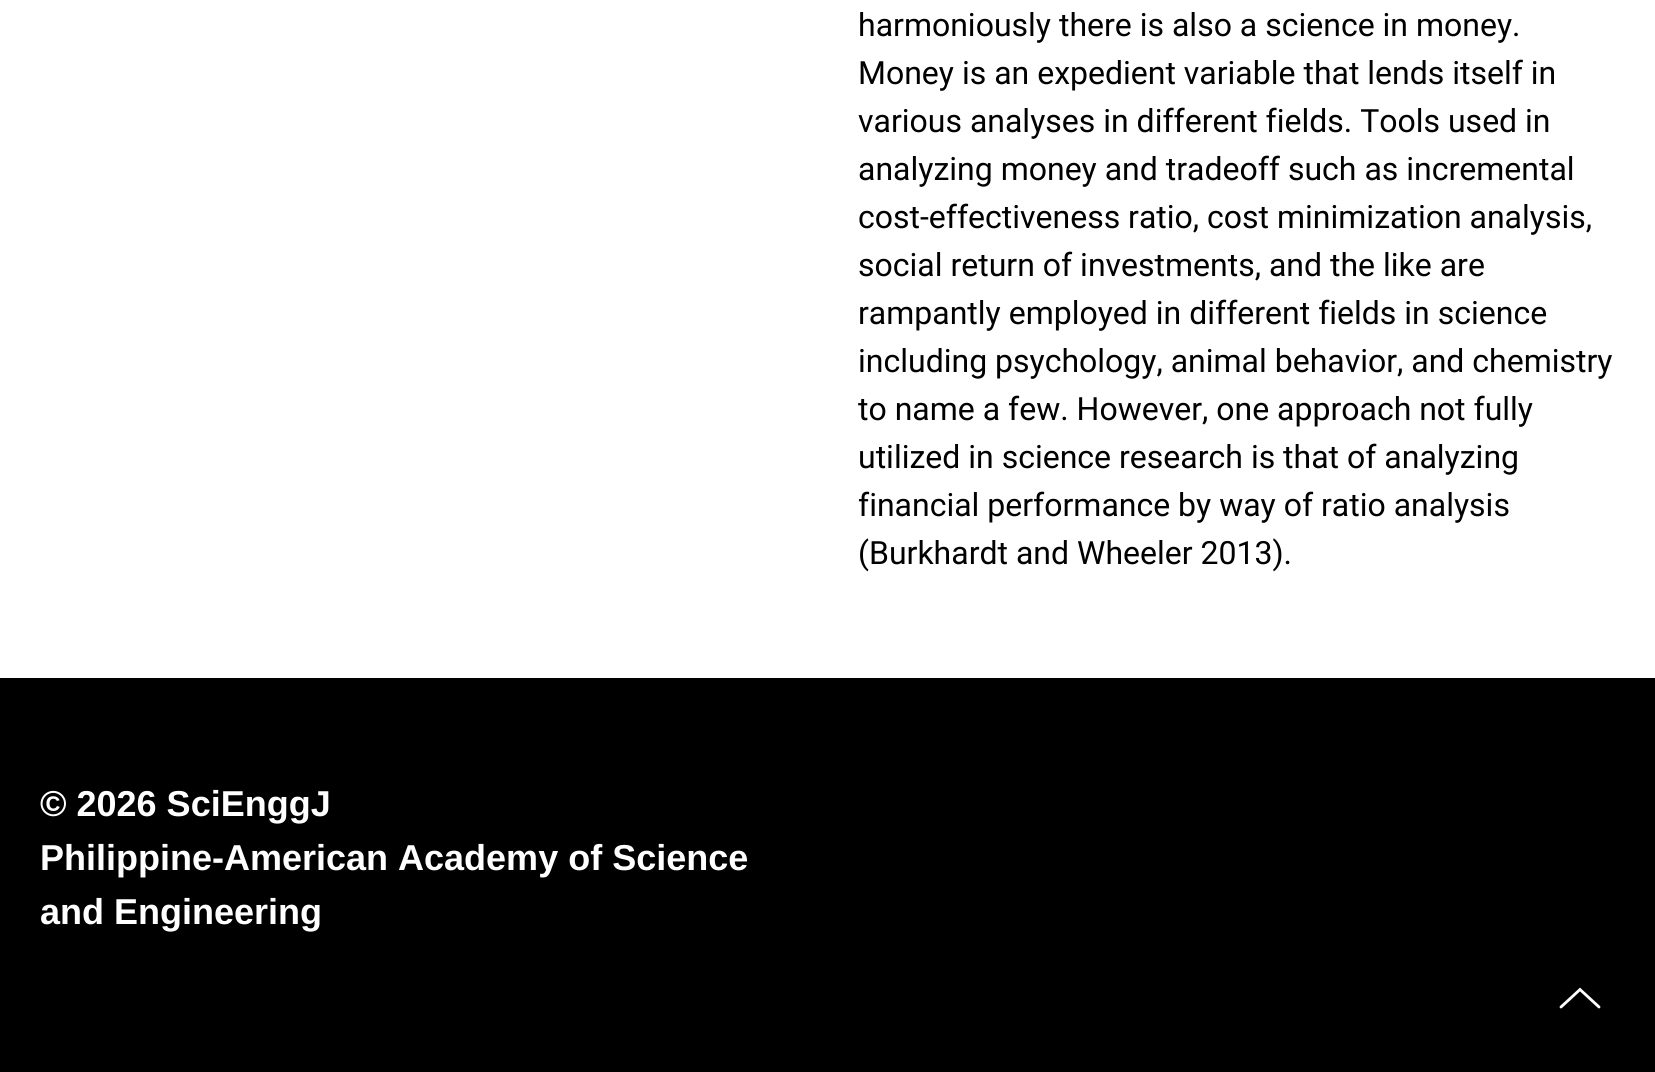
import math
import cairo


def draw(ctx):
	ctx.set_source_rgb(1, 1, 1)
	ctx.paint()
	ctx.select_font_face('Roboto')
	ctx.set_font_size(32)
	ctx.set_source_rgb(0, 0, 0)
	for x, y, s in [
		(858, 36, 'harmoniously there is also a science in money.'),
		(858, 84, 'Money is an expedient variable that lends itself in'),
		(858, 132, 'various analyses in different fields. Tools used in'),
		(858, 180, 'analyzing money and tradeoff such as incremental'),
		(858, 228, 'cost-effectiveness ratio, cost minimization analysis,'),
		(858, 276, 'social return of investments, and the like are'),
		(858, 324, 'rampantly employed in different fields in science'),
		(858, 372, 'including psychology, animal behavior, and chemistry'),
		(858, 420, 'to name a few. However, one approach not fully'),
		(858, 468, 'utilized in science research is that of analyzing'),
		(858, 516, 'financial performance by way of ratio analysis'),
		(858, 564, '(Burkhardt and Wheeler 2013).'),
	]:
		ctx.move_to(x, y)
		ctx.show_text(s)
	ctx.rectangle(0, 678, 1655, 394)
	ctx.fill()
	ctx.select_font_face('Liberation Sans', cairo.FONT_SLANT_NORMAL, cairo.FONT_WEIGHT_BOLD)
	ctx.set_font_size(36)
	ctx.set_source_rgb(1, 1, 1)
	for x, y, s in [
		(40, 816, '© 2026 SciEnggJ'),
		(40, 870, 'Philippine-American Academy of Science'),
		(40, 924, 'and Engineering'),
	]:
		ctx.move_to(x, y)
		ctx.show_text(s)
	ctx.new_path()
	ctx.move_to(1599, 1007)
	ctx.line_to(1580, 989.5)
	ctx.line_to(1561, 1007)
	ctx.set_line_width(2.8)
	ctx.set_line_cap(cairo.LINE_CAP_ROUND)
	ctx.stroke()


surface = cairo.ImageSurface(cairo.FORMAT_RGB24, 1655, 1072)
ctx = cairo.Context(surface)
options = cairo.FontOptions()
options.set_hint_metrics(cairo.HINT_METRICS_OFF)
options.set_hint_style(cairo.HINT_STYLE_NONE)
ctx.set_font_options(options)
ctx.set_miter_limit(4)
draw(ctx)
surface.write_to_png('image.png')
